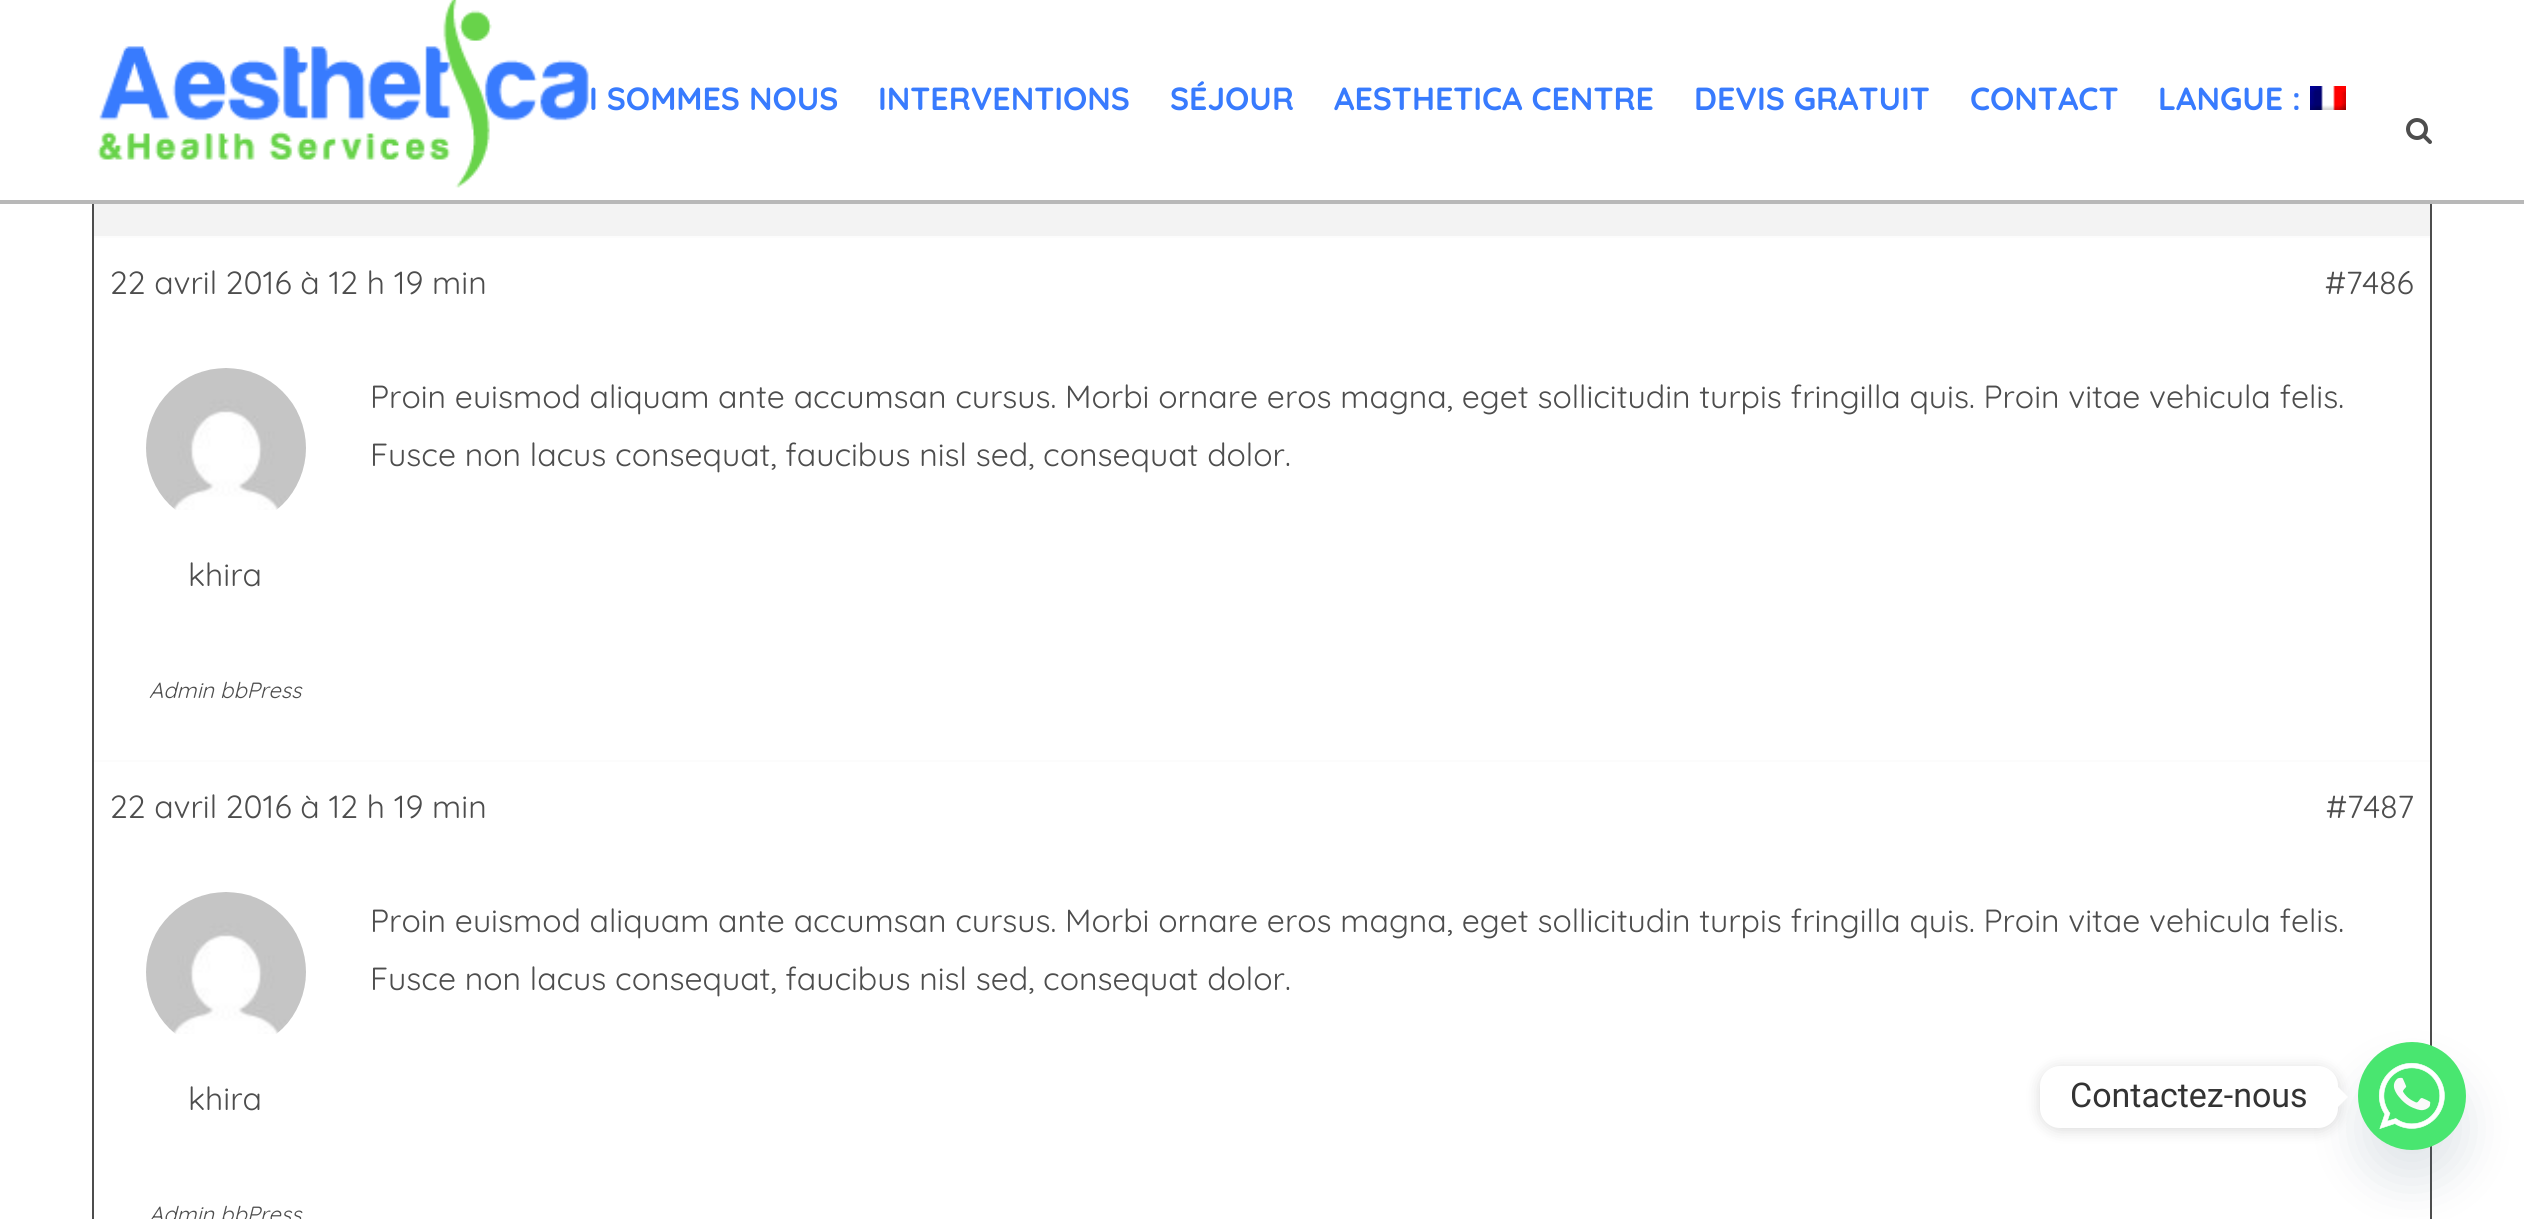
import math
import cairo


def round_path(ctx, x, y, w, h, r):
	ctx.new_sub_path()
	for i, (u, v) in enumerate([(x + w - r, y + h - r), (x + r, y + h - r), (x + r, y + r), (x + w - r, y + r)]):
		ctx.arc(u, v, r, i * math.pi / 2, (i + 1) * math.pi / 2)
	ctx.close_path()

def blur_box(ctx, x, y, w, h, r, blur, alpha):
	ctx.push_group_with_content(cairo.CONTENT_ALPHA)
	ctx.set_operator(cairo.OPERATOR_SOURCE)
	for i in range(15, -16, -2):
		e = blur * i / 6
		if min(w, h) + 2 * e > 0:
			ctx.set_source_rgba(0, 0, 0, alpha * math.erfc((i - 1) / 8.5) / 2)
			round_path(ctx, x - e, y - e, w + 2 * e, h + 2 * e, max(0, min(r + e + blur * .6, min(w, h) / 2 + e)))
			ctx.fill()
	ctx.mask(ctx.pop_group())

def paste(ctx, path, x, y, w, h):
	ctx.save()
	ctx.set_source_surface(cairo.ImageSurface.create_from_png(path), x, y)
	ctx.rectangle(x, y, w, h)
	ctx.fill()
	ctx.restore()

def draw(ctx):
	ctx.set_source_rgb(1, 1, 1)
	ctx.paint()
	ctx.rectangle(93, 143, 2338, 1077)
	ctx.set_source_rgb(0.302, 0.302, 0.302)
	ctx.stroke()
	ctx.set_source_rgb(1, 1, 1)
	ctx.rectangle(92, 142, 2340, 58)
	ctx.fill()
	ctx.set_source_rgb(0.722, 0.722, 0.722)
	ctx.rectangle(0, 200, 2524, 4)
	ctx.fill()
	paste(ctx, 'media/1.png', 97, 0, 492, 188)
	ctx.select_font_face('Quicksand', cairo.FONT_SLANT_NORMAL, cairo.FONT_WEIGHT_BOLD)
	ctx.set_font_size(32)
	ctx.set_source_rgb(0.22, 0.482, 0.996)
	for x, y, s in [
		(589, 110, 'I SOMMES NOUS'),
		(878, 110, 'INTERVENTIONS'),
		(1170, 110, 'SÉJOUR'),
		(1334, 110, 'AESTHETICA CENTRE'),
		(1694, 110, 'DEVIS GRATUIT'),
		(1970, 110, 'CONTACT'),
		(2158, 110, 'LANGUE :'),
	]:
		ctx.move_to(x, y)
		ctx.show_text(s)
	paste(ctx, 'media/2.png', 2310, 86, 36, 24)
	paste(ctx, 'media/3.png', 2406, 118, 26, 26)
	ctx.set_source_rgb(0.953, 0.953, 0.953)
	ctx.rectangle(94, 204, 2336, 32)
	ctx.fill()
	ctx.set_source_rgb(0.988, 0.988, 0.988)
	ctx.rectangle(94, 236, 2336, 2)
	ctx.fill()
	ctx.select_font_face('Quicksand')
	ctx.set_source_rgb(0.302, 0.302, 0.302)
	for x, y, s in [
		(110, 294, '22 avril 2016 à 12 h 19 min'),
		(2325, 294, '#7486'),
		(370, 408, 'Proin euismod aliquam ante accumsan cursus. Morbi ornare eros magna, eget sollicitudin turpis fringilla quis. Proin vitae vehicula felis.'),
		(370, 466, 'Fusce non lacus consequat, faucibus nisl sed, consequat dolor.'),
	]:
		ctx.move_to(x, y)
		ctx.show_text(s)
	paste(ctx, 'media/4.png', 146, 368, 160, 142)
	ctx.move_to(188, 586)
	ctx.show_text('khira')
	ctx.select_font_face('Quicksand', cairo.FONT_SLANT_ITALIC)
	ctx.set_font_size(22)
	ctx.move_to(149, 698)
	ctx.show_text('Admin bbPress')
	ctx.set_source_rgb(0.988, 0.988, 0.988)
	ctx.rectangle(94, 760, 2336, 2)
	ctx.fill()
	ctx.select_font_face('Quicksand')
	ctx.set_font_size(32)
	ctx.set_source_rgb(0.302, 0.302, 0.302)
	for x, y, s in [
		(110, 818, '22 avril 2016 à 12 h 19 min'),
		(2326, 818, '#7487'),
		(370, 932, 'Proin euismod aliquam ante accumsan cursus. Morbi ornare eros magna, eget sollicitudin turpis fringilla quis. Proin vitae vehicula felis.'),
		(370, 990, 'Fusce non lacus consequat, faucibus nisl sed, consequat dolor.'),
	]:
		ctx.move_to(x, y)
		ctx.show_text(s)
	paste(ctx, 'media/4.png', 146, 892, 160, 142)
	ctx.move_to(188, 1110)
	ctx.show_text('khira')
	ctx.select_font_face('Quicksand', cairo.FONT_SLANT_ITALIC)
	ctx.set_font_size(22)
	ctx.move_to(149, 1222)
	ctx.show_text('Admin bbPress')
	ctx.set_source_rgb(0.286, 0.408, 0.494)
	blur_box(ctx, 2358, 1074, 108, 108, 54, 24, 0.16)
	paste(ctx, 'media/5.png', 2358, 1042, 108, 108)
	ctx.set_source_rgb(0, 0, 0)
	blur_box(ctx, 2040, 1068, 298, 62, 20, 7.5, 0.15)
	ctx.set_source_rgb(1, 1, 1)
	round_path(ctx, 2040, 1066, 298, 62, 20)
	ctx.fill()
	ctx.select_font_face('Roboto')
	ctx.set_font_size(34)
	ctx.set_source_rgb(0.2, 0.2, 0.2)
	ctx.move_to(2070, 1107)
	ctx.show_text('Contactez-nous')
	ctx.set_source_rgb(1, 1, 1)
	ctx.new_path()
	ctx.move_to(2338, 1107)
	ctx.line_to(2338, 1087)
	ctx.line_to(2348, 1097)
	ctx.close_path()
	ctx.fill()


surface = cairo.ImageSurface(cairo.FORMAT_RGB24, 2524, 1219)
ctx = cairo.Context(surface)
options = cairo.FontOptions()
options.set_hint_metrics(cairo.HINT_METRICS_OFF)
options.set_hint_style(cairo.HINT_STYLE_NONE)
ctx.set_font_options(options)
ctx.set_miter_limit(4)
draw(ctx)
surface.write_to_png('image.png')
